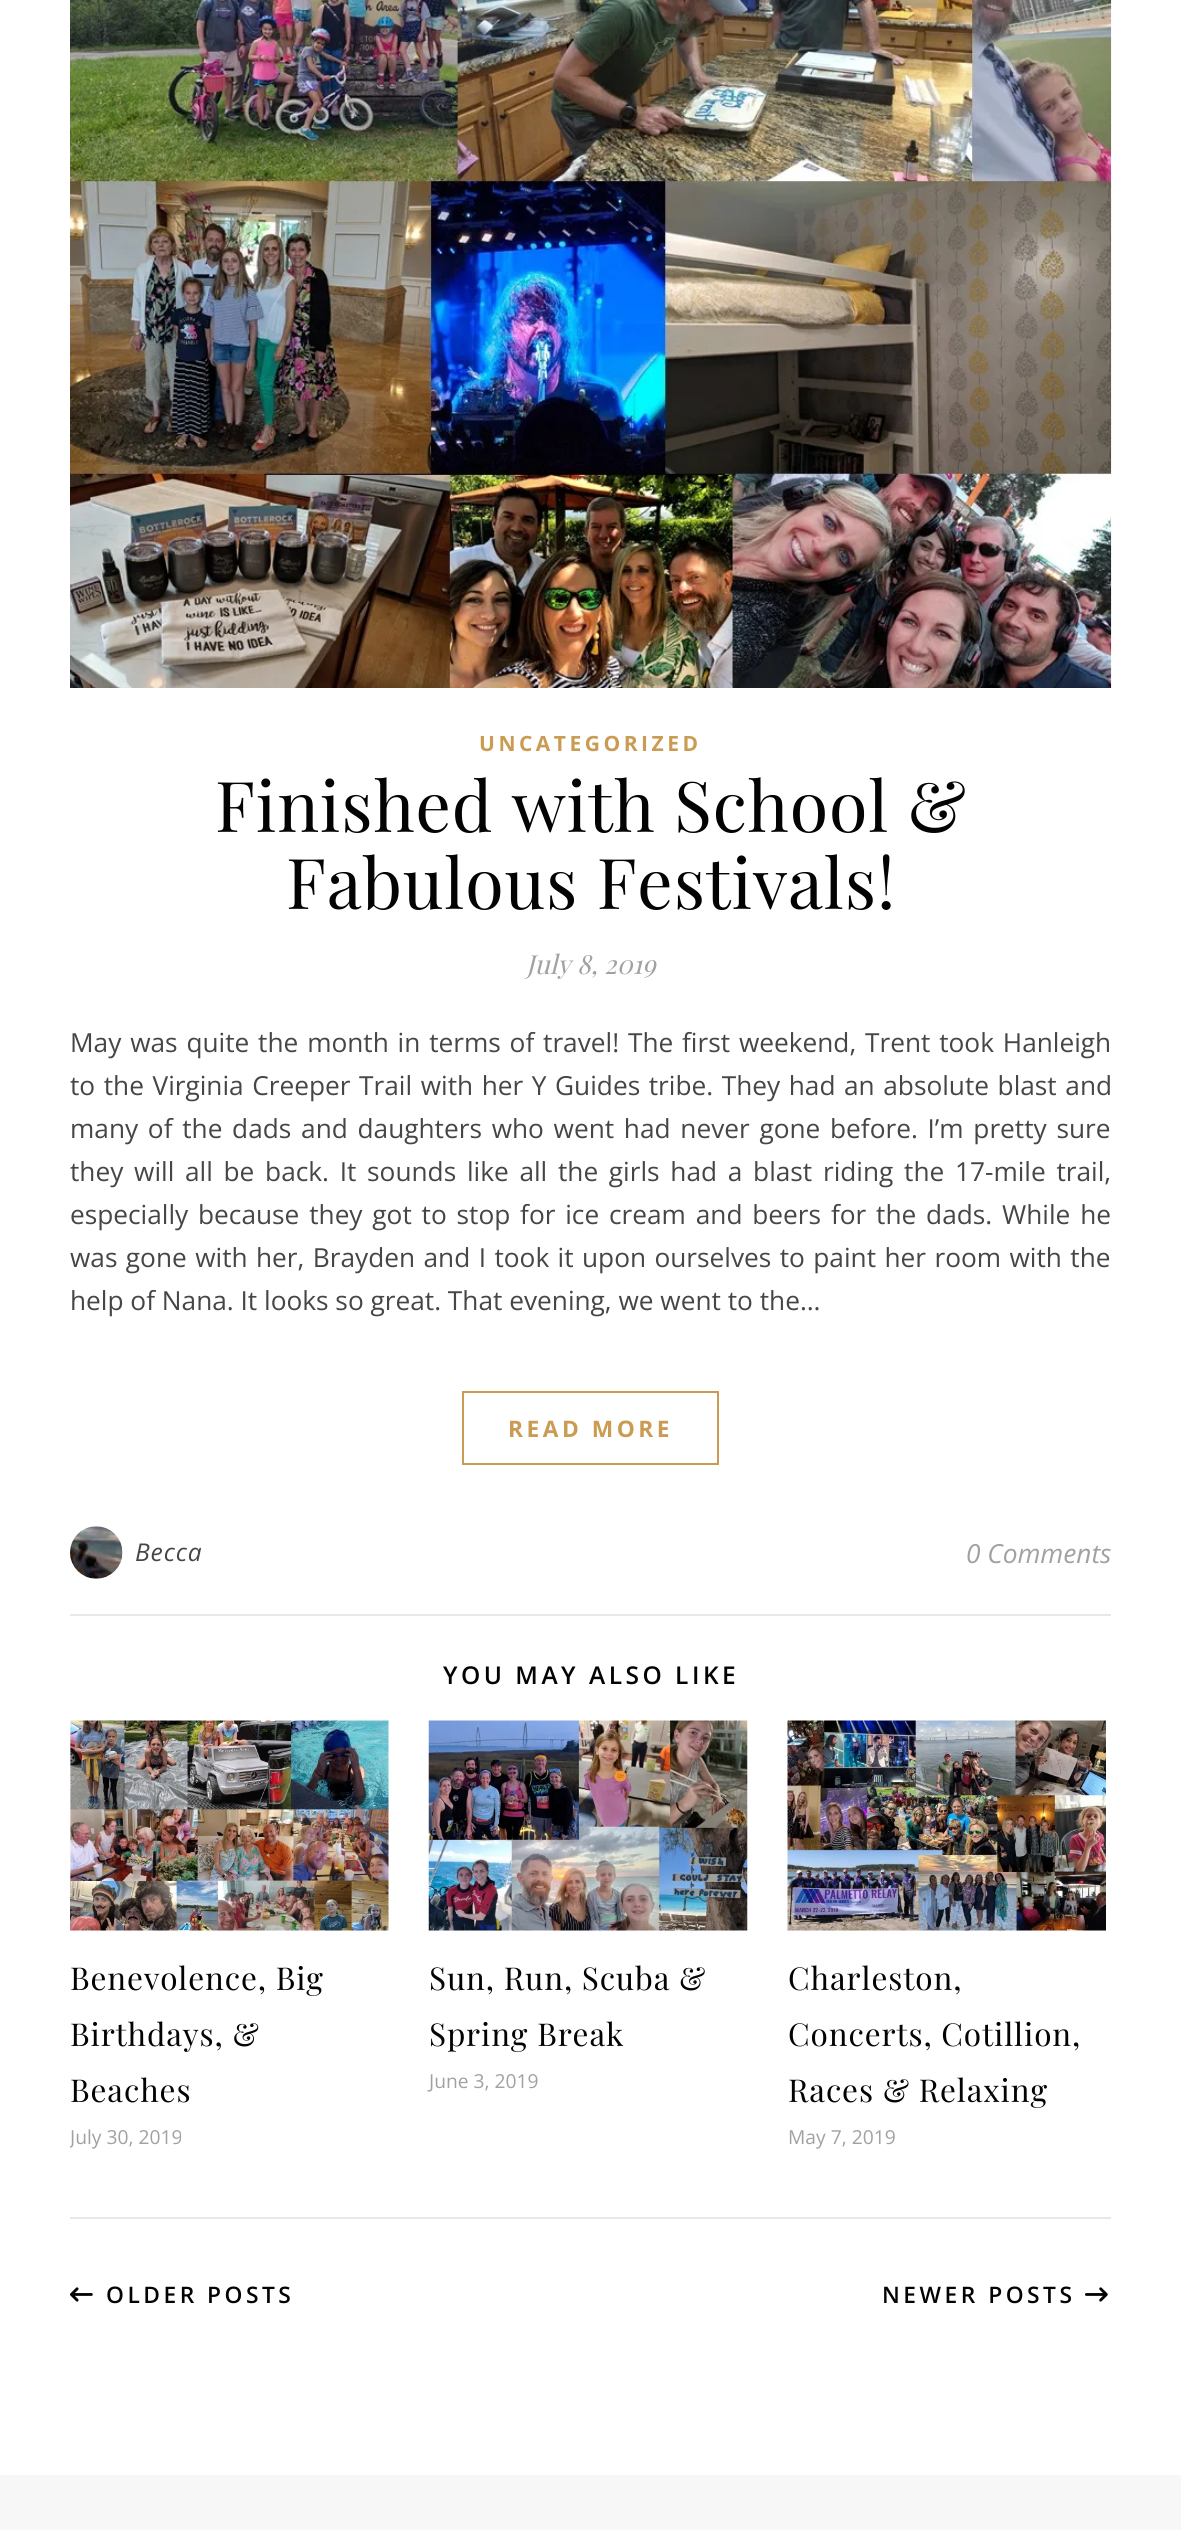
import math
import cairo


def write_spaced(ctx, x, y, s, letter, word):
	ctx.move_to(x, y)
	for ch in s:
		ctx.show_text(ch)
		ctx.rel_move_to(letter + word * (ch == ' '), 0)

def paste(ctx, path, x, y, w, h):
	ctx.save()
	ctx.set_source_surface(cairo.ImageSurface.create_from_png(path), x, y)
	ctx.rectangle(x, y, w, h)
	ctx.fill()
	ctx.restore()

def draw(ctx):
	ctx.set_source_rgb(1, 1, 1)
	ctx.paint()
	paste(ctx, 'media/1.png', 70, 0, 1042, 688)
	ctx.select_font_face('Open Sans', cairo.FONT_SLANT_NORMAL, cairo.FONT_WEIGHT_BOLD)
	ctx.set_font_size(21)
	ctx.set_source_rgb(0.792, 0.608, 0.322)
	write_spaced(ctx, 479, 751, 'UNCATEGORIZED', 3.5, 0)
	ctx.select_font_face('Playfair Display')
	ctx.set_font_size(70)
	ctx.set_source_rgb(0.012, 0.012, 0.012)
	write_spaced(ctx, 215, 832, 'Finished with School &', 0.9, 0)
	write_spaced(ctx, 286, 909, 'Fabulous Festivals!', 0.9, 0)
	ctx.select_font_face('Playfair Display', cairo.FONT_SLANT_ITALIC)
	ctx.set_font_size(26.25)
	ctx.set_source_rgb(0.631, 0.631, 0.631)
	ctx.move_to(526, 974)
	ctx.show_text('July 8, 2019')
	ctx.select_font_face('Open Sans')
	ctx.set_source_rgb(0.275, 0.275, 0.275)
	write_spaced(ctx, 70, 1052, 'May was quite the month in terms of travel! The first weekend, Trent took Hanleigh', 0, 2)
	write_spaced(ctx, 70, 1095, 'to the Virginia Creeper Trail with her Y Guides tribe. They had an absolute blast and', 0, 1.75)
	write_spaced(ctx, 70, 1138, 'many of the dads and daughters who went had never gone before. I’m pretty sure', 0, 2.9)
	write_spaced(ctx, 70, 1181, 'they will all be back. It sounds like all the girls had a blast riding the 17-mile trail,', 0, 3.9)
	write_spaced(ctx, 70, 1224, 'especially because they got to stop for ice cream and beers for the dads. While he', 0, 3)
	write_spaced(ctx, 70, 1267, 'was gone with her, Brayden and I took it upon ourselves to paint her room with the', 0, 1.6)
	ctx.move_to(70, 1310)
	ctx.show_text('help of Nana. It looks so great. That evening, we went to the…')
	ctx.rectangle(463, 1392, 255, 72)
	ctx.set_source_rgb(0.792, 0.608, 0.322)
	ctx.stroke()
	ctx.select_font_face('Open Sans', cairo.FONT_SLANT_NORMAL, cairo.FONT_WEIGHT_BOLD)
	ctx.set_font_size(22.75)
	write_spaced(ctx, 508, 1437, 'READ MORE', 3.5, 0)
	ctx.set_source_rgb(0.91, 0.91, 0.91)
	ctx.rectangle(70, 1614, 1041, 2)
	ctx.fill()
	paste(ctx, 'media/2.png', 70, 1526, 53, 53)
	ctx.select_font_face('Open Sans', cairo.FONT_SLANT_ITALIC)
	ctx.set_font_size(24.5)
	ctx.set_source_rgb(0.275, 0.275, 0.275)
	write_spaced(ctx, 135, 1561, 'Becca', 0.9, 0)
	ctx.set_font_size(26.25)
	ctx.set_source_rgb(0.631, 0.631, 0.631)
	ctx.move_to(966, 1563)
	ctx.show_text('0 Comments')
	ctx.set_source_rgb(0.91, 0.91, 0.91)
	ctx.rectangle(70, 2217, 1041, 2)
	ctx.fill()
	ctx.select_font_face('Open Sans SemiBold')
	ctx.set_font_size(24.5)
	ctx.set_source_rgb(0.012, 0.012, 0.012)
	write_spaced(ctx, 443, 1684, 'YOU MAY ALSO LIKE', 3.5, 0)
	paste(ctx, 'media/3.png', 70, 1720, 319, 211)
	ctx.select_font_face('Playfair Display')
	ctx.set_font_size(31.5)
	for x, y, s in [
		(70, 1990, 'Benevolence, Big'),
		(70, 2046, 'Birthdays, &'),
		(70, 2102, 'Beaches'),
	]:
		write_spaced(ctx, x, y, s, 0.9, 0)
	ctx.save()
	ctx.rectangle(70, 0, 1041, 2405)
	ctx.clip()
	ctx.select_font_face('Open Sans')
	ctx.set_font_size(19.25)
	ctx.set_source_rgb(0.631, 0.631, 0.631)
	ctx.move_to(70, 2144)
	ctx.show_text('July 30, 2019')
	ctx.restore()
	paste(ctx, 'media/4.png', 428, 1720, 320, 211)
	write_spaced(ctx, 429, 1990, 'Sun, Run, Scuba &', 0.9, 0)
	write_spaced(ctx, 429, 2046, 'Spring Break', 0.9, 0)
	ctx.select_font_face('Open Sans')
	ctx.set_font_size(19.25)
	ctx.set_source_rgb(0.631, 0.631, 0.631)
	ctx.move_to(429, 2088)
	ctx.show_text('June 3, 2019')
	paste(ctx, 'media/5.png', 787, 1720, 319, 211)
	ctx.select_font_face('Playfair Display')
	ctx.set_font_size(31.5)
	ctx.set_source_rgb(0.012, 0.012, 0.012)
	for x, y, s in [
		(788, 1990, 'Charleston,'),
		(788, 2046, 'Concerts, Cotillion,'),
		(788, 2102, 'Races & Relaxing'),
	]:
		write_spaced(ctx, x, y, s, 0.9, 0)
	ctx.select_font_face('Open Sans')
	ctx.set_font_size(19.25)
	ctx.set_source_rgb(0.631, 0.631, 0.631)
	ctx.move_to(788, 2144)
	ctx.show_text('May 7, 2019')
	paste(ctx, 'media/6.png', 70, 2287, 23, 15)
	ctx.select_font_face('Open Sans SemiBold')
	ctx.set_font_size(22.75)
	ctx.set_source_rgb(0.012, 0.012, 0.012)
	write_spaced(ctx, 106, 2303, 'OLDER POSTS', 3.5, 0)
	write_spaced(ctx, 882, 2303, 'NEWER POSTS', 3.5, 0)
	paste(ctx, 'media/7.png', 1085, 2287, 23, 15)
	ctx.set_source_rgb(0.965, 0.965, 0.965)
	ctx.rectangle(0, 2475, 1181, 55)
	ctx.fill()


surface = cairo.ImageSurface(cairo.FORMAT_RGB24, 1181, 2530)
ctx = cairo.Context(surface)
options = cairo.FontOptions()
options.set_hint_metrics(cairo.HINT_METRICS_OFF)
options.set_hint_style(cairo.HINT_STYLE_NONE)
ctx.set_font_options(options)
ctx.set_miter_limit(4)
draw(ctx)
surface.write_to_png('image.png')
